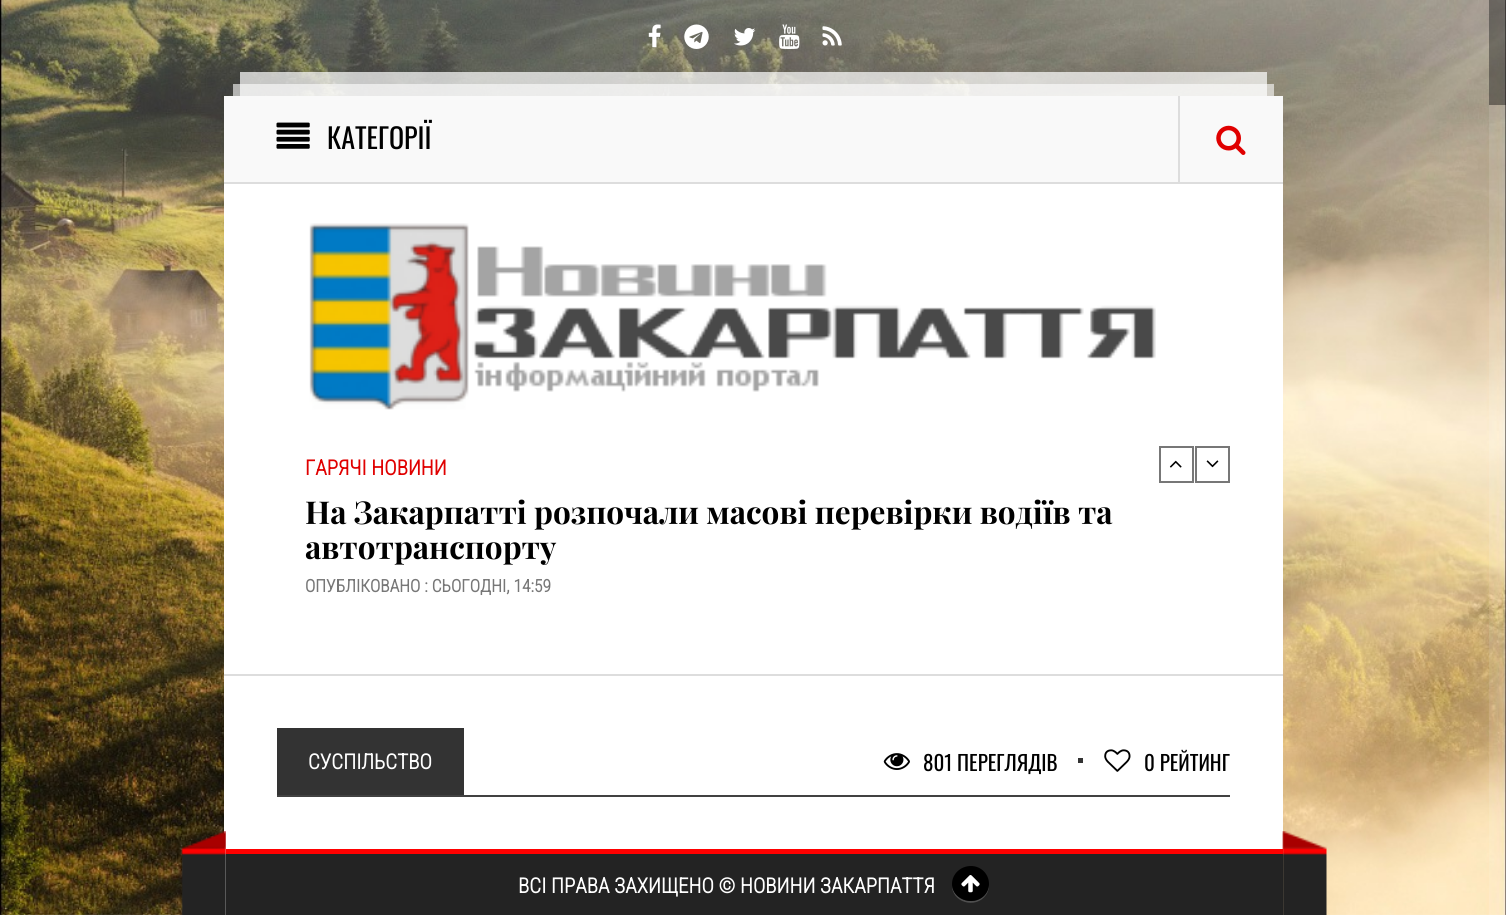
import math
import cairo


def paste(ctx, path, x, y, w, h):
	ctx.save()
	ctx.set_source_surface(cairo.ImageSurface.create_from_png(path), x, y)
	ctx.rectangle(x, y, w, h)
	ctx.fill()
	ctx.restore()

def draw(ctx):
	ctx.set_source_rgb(1, 1, 1)
	ctx.paint()
	paste(ctx, 'media/1.png', 0, 0, 1506, 915)
	paste(ctx, 'media/2.png', 648, 24, 13, 24)
	paste(ctx, 'media/3.png', 684, 24, 25, 25)
	paste(ctx, 'media/4.png', 734, 28, 22, 18)
	paste(ctx, 'media/5.png', 779, 24, 21, 25)
	paste(ctx, 'media/6.png', 822, 26, 20, 20)
	ctx.set_source_rgba(1, 1, 1, 0.1)
	ctx.rectangle(1489, 0, 17, 915)
	ctx.fill()
	ctx.set_source_rgba(0, 0, 0, 0.4)
	ctx.rectangle(1489, 0, 17, 105)
	ctx.fill()
	ctx.set_source_rgb(1, 1, 1)
	ctx.rectangle(224, 184, 1059, 731)
	ctx.fill()
	ctx.set_source_rgba(1, 1, 1, 0.6)
	ctx.rectangle(233, 84, 1041, 12)
	ctx.fill()
	ctx.set_source_rgba(1, 1, 1, 0.7)
	ctx.rectangle(240, 72, 1027, 24)
	ctx.fill()
	ctx.set_source_rgb(0.973, 0.973, 0.973)
	ctx.rectangle(224, 96, 1059, 86)
	ctx.fill()
	ctx.set_source_rgb(0.867, 0.867, 0.867)
	ctx.rectangle(224, 182, 1059, 2)
	ctx.fill()
	paste(ctx, 'media/7.png', 276, 122, 34, 27)
	ctx.select_font_face('Oswald')
	ctx.set_font_size(28)
	ctx.set_source_rgb(0, 0, 0)
	ctx.move_to(327, 149)
	ctx.show_text('КАТЕГОРІЇ')
	ctx.set_source_rgb(0.867, 0.867, 0.867)
	ctx.rectangle(1178, 96, 2, 88)
	ctx.fill()
	paste(ctx, 'media/8.png', 1216, 125, 30, 30)
	ctx.rectangle(224, 674, 1059, 2)
	ctx.fill()
	paste(ctx, 'media/9.png', 309, 223, 847, 187)
	ctx.select_font_face('Roboto Condensed', cairo.FONT_SLANT_NORMAL, cairo.FONT_WEIGHT_BOLD)
	ctx.set_font_size(21)
	ctx.set_source_rgb(0.878, 0, 0)
	ctx.move_to(305, 475)
	ctx.show_text('ГАРЯЧІ НОВИНИ')
	ctx.select_font_face('Playfair Display', cairo.FONT_SLANT_NORMAL, cairo.FONT_WEIGHT_BOLD)
	ctx.set_font_size(31.5)
	ctx.set_source_rgb(0, 0, 0)
	ctx.move_to(305, 524)
	ctx.show_text('На Закарпатті розпочали масові перевірки водіїв та')
	ctx.move_to(305, 559)
	ctx.show_text('автотранспорту')
	ctx.select_font_face('Roboto Condensed', cairo.FONT_SLANT_NORMAL, cairo.FONT_WEIGHT_BOLD)
	ctx.set_font_size(17.5)
	ctx.set_source_rgb(0.467, 0.467, 0.467)
	ctx.move_to(305, 592)
	ctx.show_text('ОПУБЛІКОВАНО : СЬОГОДНІ, 14:59')
	ctx.rectangle(1160, 447, 33, 35)
	ctx.stroke()
	paste(ctx, 'media/10.png', 1169, 460, 13, 8)
	ctx.rectangle(1196, 447, 33, 35)
	ctx.stroke()
	paste(ctx, 'media/11.png', 1206, 460, 13, 8)
	ctx.set_source_rgb(0.255, 0.255, 0.255)
	ctx.rectangle(277, 795, 953, 2)
	ctx.fill()
	ctx.set_source_rgb(0.2, 0.2, 0.2)
	ctx.rectangle(277, 728, 187, 67)
	ctx.fill()
	ctx.set_font_size(21)
	ctx.set_source_rgb(1, 1, 1)
	ctx.move_to(308, 769)
	ctx.show_text('СУСПІЛЬСТВО')
	paste(ctx, 'media/12.png', 883, 753, 27, 17)
	ctx.select_font_face('Oswald')
	ctx.set_source_rgb(0, 0, 0)
	ctx.move_to(923, 771)
	ctx.show_text('801 ПЕРЕГЛЯДІВ')
	ctx.set_source_rgb(0.2, 0.2, 0.2)
	ctx.rectangle(1078, 758, 5, 5)
	ctx.fill()
	paste(ctx, 'media/13.png', 1104, 749, 27, 23)
	ctx.set_source_rgb(0, 0, 0)
	ctx.move_to(1144, 771)
	ctx.show_text('0 РЕЙТИНГ')
	ctx.set_source_rgb(0.137, 0.137, 0.137)
	ctx.rectangle(226, 854, 1057, 61)
	ctx.fill()
	ctx.set_source_rgb(1, 0, 0)
	ctx.rectangle(226, 849, 1057, 5)
	ctx.fill()
	paste(ctx, 'media/14.png', 181, 831, 45, 84)
	ctx.select_font_face('Roboto Condensed', cairo.FONT_SLANT_NORMAL, cairo.FONT_WEIGHT_BOLD)
	ctx.set_source_rgb(1, 1, 1)
	ctx.move_to(518, 893)
	ctx.show_text('ВСІ ПРАВА ЗАХИЩЕНО © НОВИНИ ЗАКАРПАТТЯ')
	ctx.set_source_rgb(0.31, 0.31, 0.31)
	ctx.new_path()
	ctx.move_to(952, 884.5)
	ctx.curve_to(951, 902.5, 976, 909.5, 986, 895)
	ctx.curve_to(988.5, 891.5, 989.5, 886.5, 988.5, 882.5)
	ctx.curve_to(989, 886, 988, 890, 986, 893.5)
	ctx.curve_to(976.5, 907, 953, 901.5, 952, 884.5)
	ctx.close_path()
	ctx.fill()
	ctx.set_source_rgb(0, 0, 0)
	ctx.new_path()
	ctx.move_to(971, 866)
	ctx.curve_to(981, 866, 989, 874, 989, 884)
	ctx.curve_to(989, 893.5, 981, 901, 971, 901)
	ctx.curve_to(960.5, 901, 952, 893.5, 952, 884)
	ctx.curve_to(952, 874, 960.5, 866, 971, 866)
	ctx.close_path()
	ctx.fill()
	paste(ctx, 'media/15.png', 961, 875, 19, 18)
	paste(ctx, 'media/16.png', 1282, 831, 45, 84)


surface = cairo.ImageSurface(cairo.FORMAT_RGB24, 1506, 915)
ctx = cairo.Context(surface)
options = cairo.FontOptions()
options.set_hint_metrics(cairo.HINT_METRICS_OFF)
options.set_hint_style(cairo.HINT_STYLE_NONE)
ctx.set_font_options(options)
ctx.set_miter_limit(4)
draw(ctx)
surface.write_to_png('image.png')
